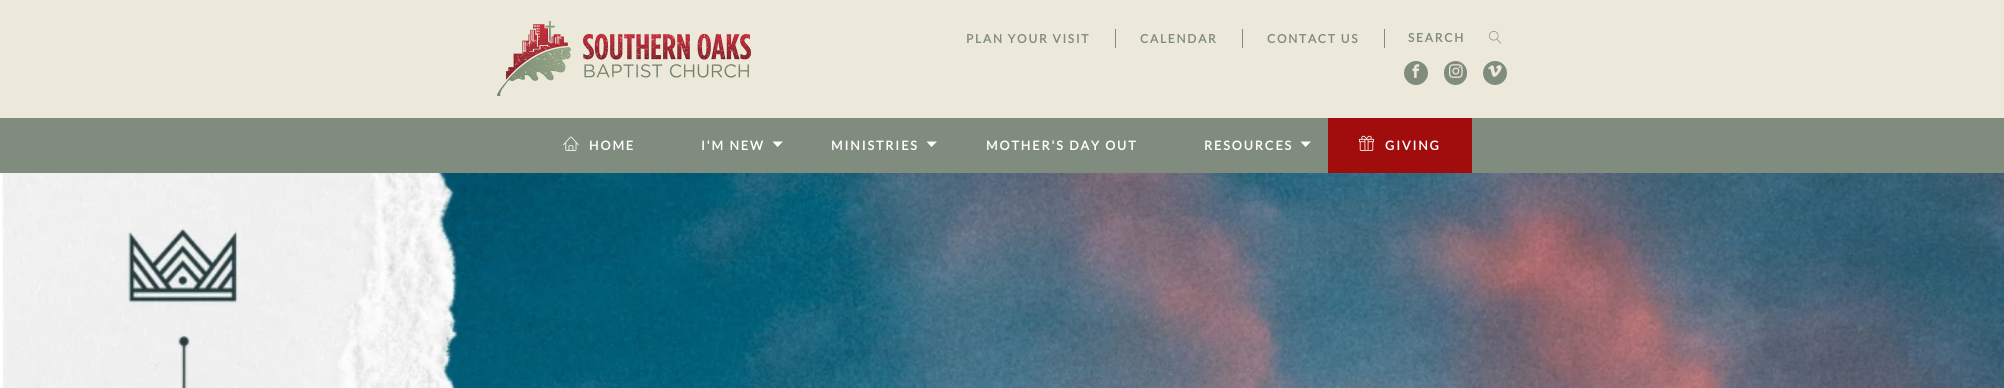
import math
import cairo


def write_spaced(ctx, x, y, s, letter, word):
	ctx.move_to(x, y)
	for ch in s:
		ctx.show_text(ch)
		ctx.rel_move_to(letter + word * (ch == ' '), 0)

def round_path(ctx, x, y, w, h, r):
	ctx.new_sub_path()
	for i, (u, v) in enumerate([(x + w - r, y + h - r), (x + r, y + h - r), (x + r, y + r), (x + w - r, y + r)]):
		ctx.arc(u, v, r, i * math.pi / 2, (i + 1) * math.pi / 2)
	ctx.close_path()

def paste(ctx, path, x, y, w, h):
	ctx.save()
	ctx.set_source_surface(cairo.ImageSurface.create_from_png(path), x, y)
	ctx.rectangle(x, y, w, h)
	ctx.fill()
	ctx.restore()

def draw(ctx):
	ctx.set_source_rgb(0.502, 0.549, 0.49)
	ctx.paint()
	ctx.set_source_rgb(0.929, 0.914, 0.855)
	ctx.rectangle(0, 0, 2004, 118)
	ctx.fill()
	paste(ctx, 'media/1.png', 497, 21, 254, 75)
	ctx.set_source_rgb(0.502, 0.549, 0.49)
	ctx.rectangle(1115, 29, 1, 19)
	ctx.fill()
	ctx.select_font_face('Lato', cairo.FONT_SLANT_NORMAL, cairo.FONT_WEIGHT_BOLD)
	ctx.set_font_size(12)
	write_spaced(ctx, 966, 43, 'PLAN YOUR VISIT', 1.75, 0)
	ctx.rectangle(1242, 29, 1, 19)
	ctx.fill()
	write_spaced(ctx, 1140, 43, 'CALENDAR', 1.75, 0)
	ctx.rectangle(1384, 29, 1, 19)
	ctx.fill()
	write_spaced(ctx, 1267, 43, 'CONTACT US', 1.75, 0)
	write_spaced(ctx, 1408, 42, 'SEARCH', 1.75, 0)
	paste(ctx, 'media/2.png', 1489, 31, 12, 13)
	ctx.arc(1416, 73, 12, 0, 2 * math.pi)
	ctx.fill()
	paste(ctx, 'media/3.png', 1412, 64, 8, 14)
	round_path(ctx, 1444, 61, 23, 24, 11.5)
	ctx.fill()
	paste(ctx, 'media/4.png', 1449, 64, 14, 14)
	ctx.arc(1495, 73, 12, 0, 2 * math.pi)
	ctx.fill()
	paste(ctx, 'media/5.png', 1488, 65, 14, 12)
	paste(ctx, 'media/6.png', 563, 136, 16, 15)
	ctx.set_font_size(12.6)
	ctx.set_source_rgb(1, 1, 1)
	write_spaced(ctx, 589, 150, 'HOME', 1.9, 0)
	write_spaced(ctx, 701, 150, 'I\'M NEW', 1.9, 0)
	ctx.new_path()
	ctx.move_to(772.5, 141.5)
	ctx.line_to(783, 141.5)
	ctx.line_to(777.5, 147)
	ctx.close_path()
	ctx.fill()
	write_spaced(ctx, 831, 150, 'MINISTRIES', 1.9, 0)
	ctx.new_path()
	ctx.move_to(926.5, 141.5)
	ctx.line_to(937, 141.5)
	ctx.line_to(931.5, 147)
	ctx.close_path()
	ctx.fill()
	write_spaced(ctx, 986, 150, 'MOTHER\'S DAY OUT', 1.9, 0)
	write_spaced(ctx, 1204, 150, 'RESOURCES', 1.9, 0)
	ctx.new_path()
	ctx.move_to(1300.5, 141.5)
	ctx.line_to(1311, 141.5)
	ctx.line_to(1305.5, 147)
	ctx.close_path()
	ctx.fill()
	ctx.set_source_rgb(0.631, 0.051, 0.051)
	ctx.rectangle(1328, 118, 144, 55)
	ctx.fill()
	paste(ctx, 'media/7.png', 1359, 135, 15, 16)
	ctx.set_source_rgb(1, 1, 1)
	write_spaced(ctx, 1385, 150, 'GIVING', 1.9, 0)
	paste(ctx, 'media/8.png', 0, 173, 2004, 215)


surface = cairo.ImageSurface(cairo.FORMAT_RGB24, 2004, 388)
ctx = cairo.Context(surface)
options = cairo.FontOptions()
options.set_hint_metrics(cairo.HINT_METRICS_OFF)
options.set_hint_style(cairo.HINT_STYLE_NONE)
ctx.set_font_options(options)
ctx.set_miter_limit(4)
draw(ctx)
surface.write_to_png('image.png')
